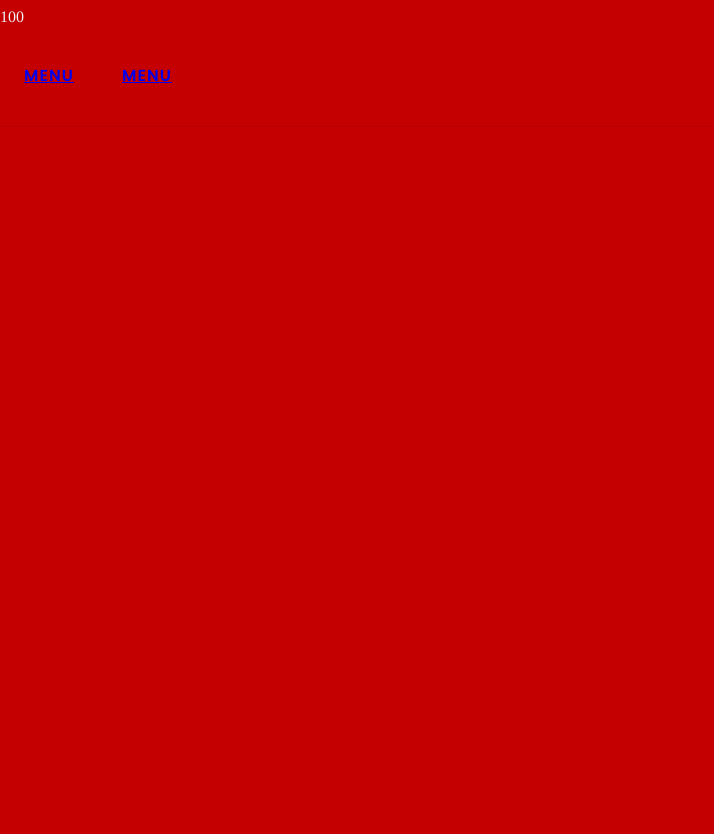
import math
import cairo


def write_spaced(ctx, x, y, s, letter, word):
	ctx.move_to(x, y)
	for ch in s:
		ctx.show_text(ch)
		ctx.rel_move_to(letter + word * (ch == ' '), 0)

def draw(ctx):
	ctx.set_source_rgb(0.769, 0, 0)
	ctx.paint()
	ctx.select_font_face('Liberation Serif')
	ctx.set_font_size(16)
	ctx.set_source_rgb(0.929, 0.941, 0.949)
	ctx.move_to(0, 22)
	ctx.show_text('100')
	ctx.set_source_rgb(0.706, 0, 0)
	ctx.rectangle(0, 126, 714, 1)
	ctx.fill()
	ctx.select_font_face('Poppins SemiBold')
	ctx.set_source_rgb(0, 0, 0.933)
	write_spaced(ctx, 24, 81, 'MENU', 1, 0)
	ctx.rectangle(24, 82, 50, 1)
	ctx.fill()
	write_spaced(ctx, 122, 81, 'MENU', 1, 0)
	ctx.rectangle(122, 82, 50, 1)
	ctx.fill()


surface = cairo.ImageSurface(cairo.FORMAT_RGB24, 714, 834)
ctx = cairo.Context(surface)
options = cairo.FontOptions()
options.set_hint_metrics(cairo.HINT_METRICS_OFF)
options.set_hint_style(cairo.HINT_STYLE_NONE)
ctx.set_font_options(options)
ctx.set_miter_limit(4)
draw(ctx)
surface.write_to_png('image.png')
